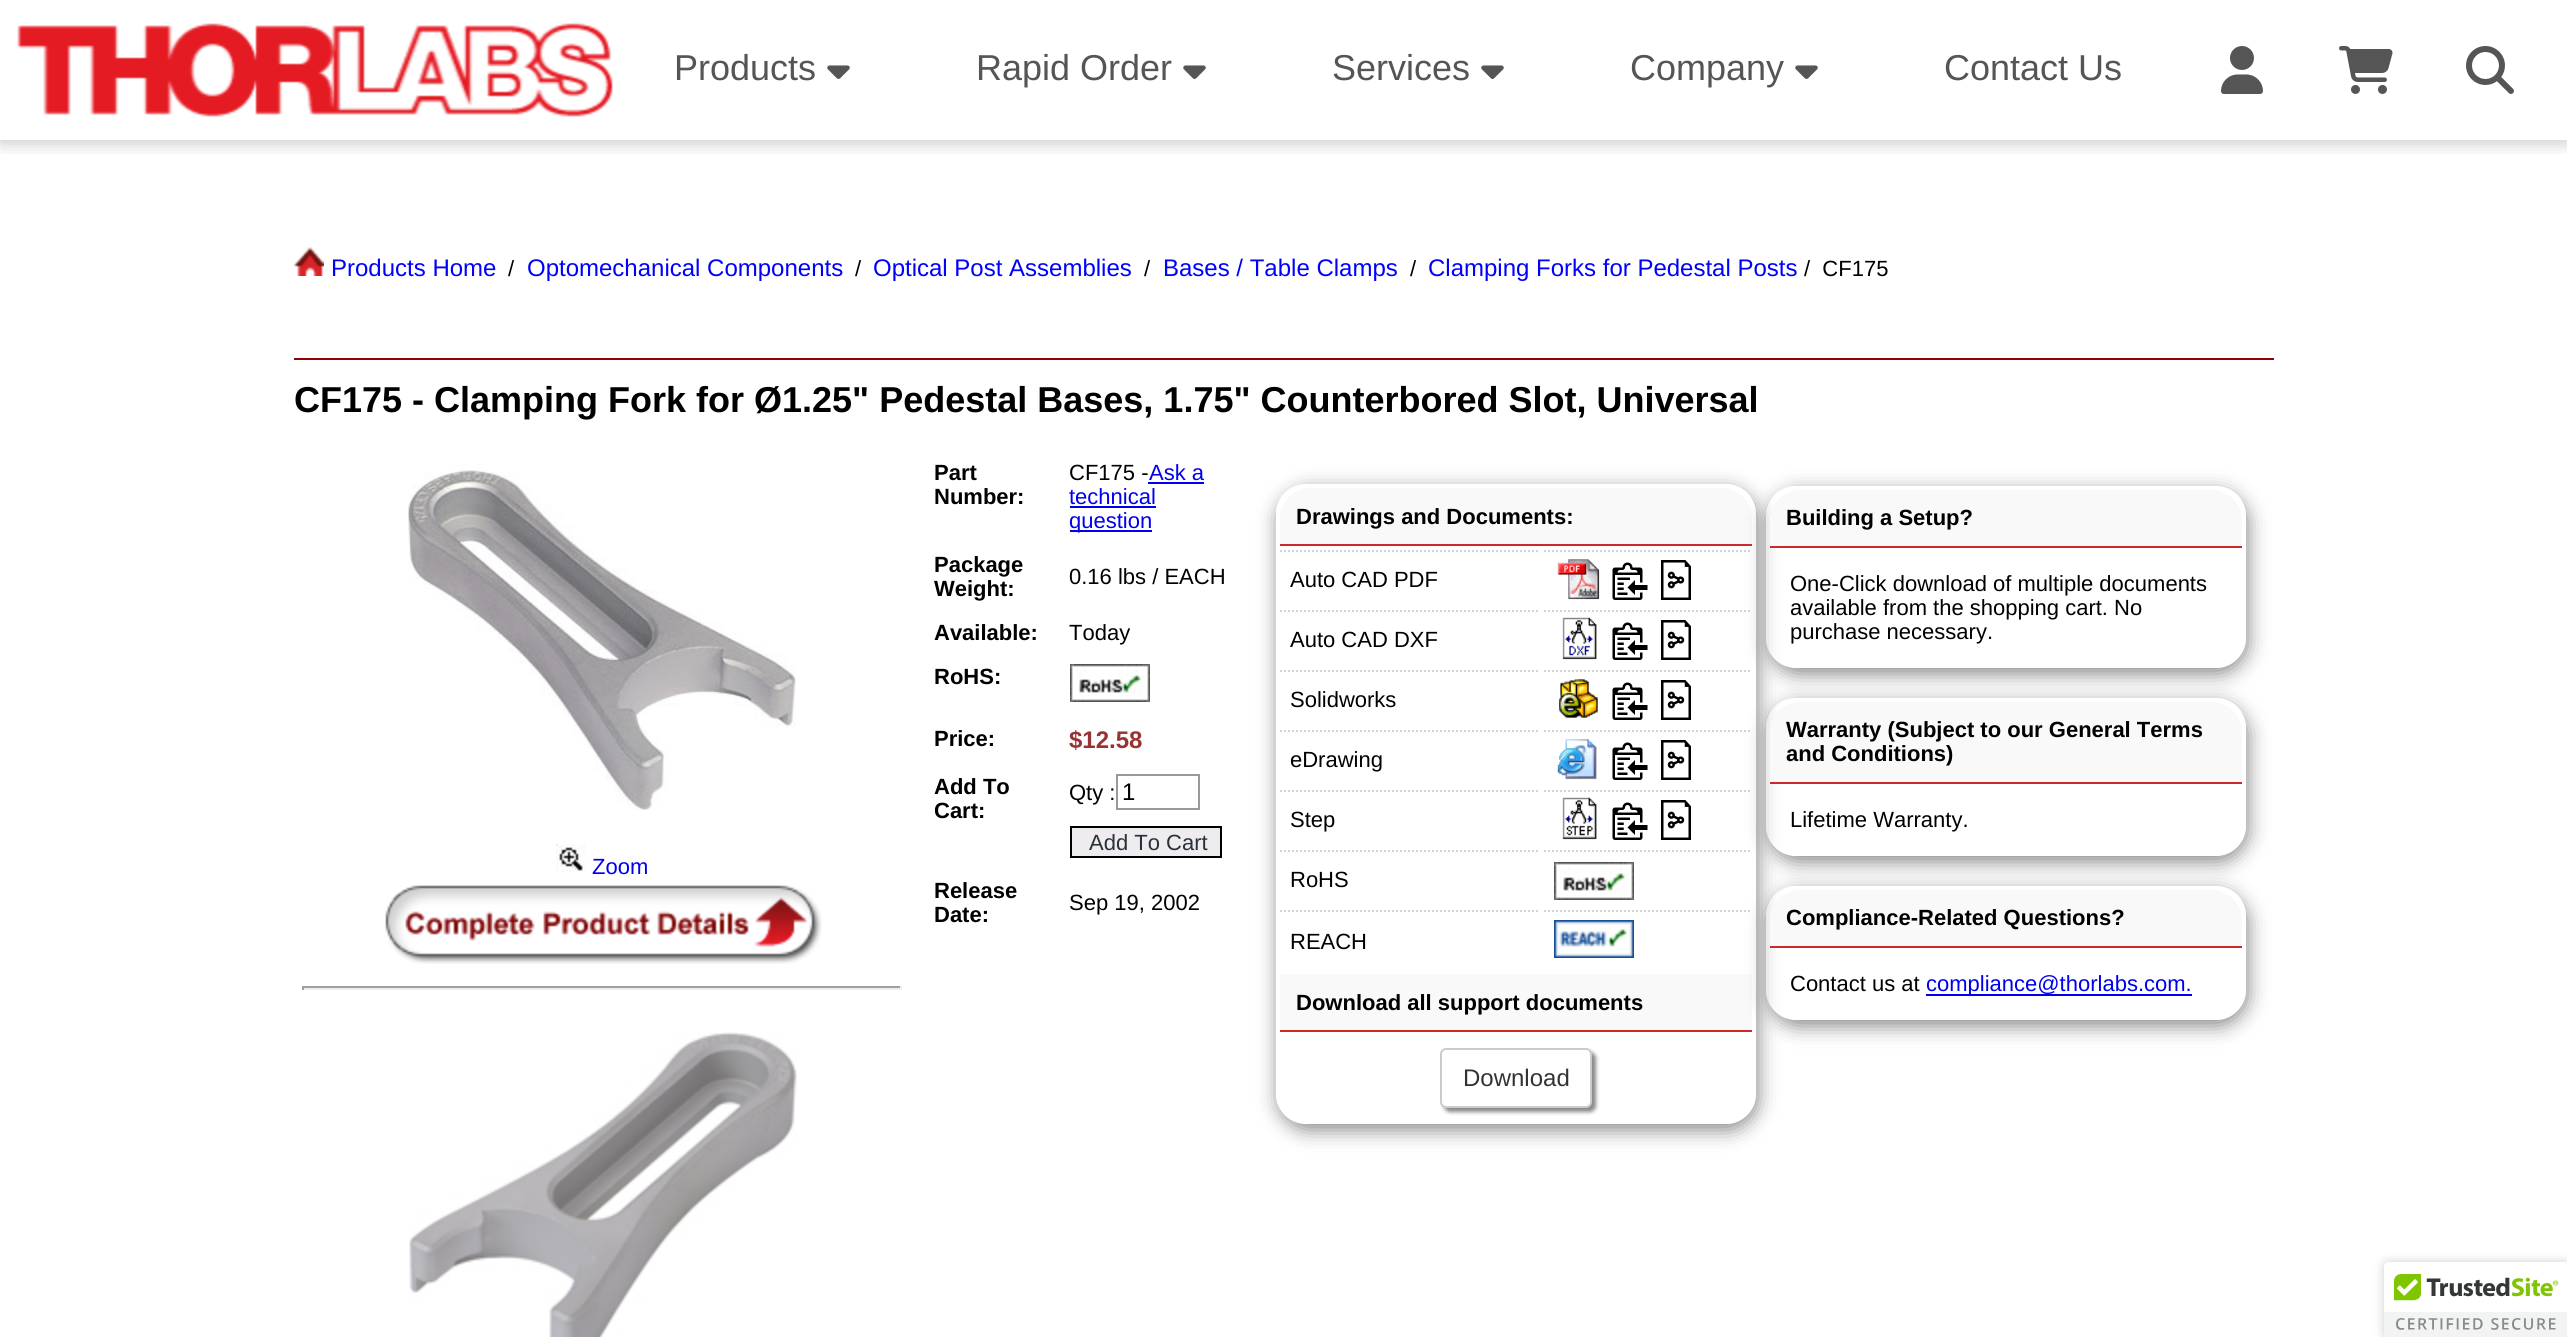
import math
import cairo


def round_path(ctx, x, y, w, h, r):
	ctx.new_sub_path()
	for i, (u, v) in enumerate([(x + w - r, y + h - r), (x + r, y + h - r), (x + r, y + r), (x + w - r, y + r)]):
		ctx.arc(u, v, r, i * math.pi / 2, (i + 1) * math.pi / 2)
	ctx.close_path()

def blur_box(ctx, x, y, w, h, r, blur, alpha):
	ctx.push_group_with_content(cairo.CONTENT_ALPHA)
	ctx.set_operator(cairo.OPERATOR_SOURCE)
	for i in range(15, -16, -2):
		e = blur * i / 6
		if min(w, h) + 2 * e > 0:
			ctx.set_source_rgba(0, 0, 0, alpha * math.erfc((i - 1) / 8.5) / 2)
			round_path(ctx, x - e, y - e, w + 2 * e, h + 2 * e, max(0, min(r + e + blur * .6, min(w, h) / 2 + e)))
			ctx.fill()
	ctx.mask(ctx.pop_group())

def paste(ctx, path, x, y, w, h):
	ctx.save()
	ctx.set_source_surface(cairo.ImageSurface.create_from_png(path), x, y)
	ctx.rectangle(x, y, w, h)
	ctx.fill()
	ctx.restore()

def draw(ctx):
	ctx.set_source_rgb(1, 1, 1)
	ctx.paint()
	ctx.save()
	ctx.rectangle(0, 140, 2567, 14)
	ctx.clip()
	ctx.set_source_rgb(0, 0, 0)
	blur_box(ctx, 0, 4, 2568, 140, 0, 8, 0.2)
	ctx.restore()
	paste(ctx, 'media/1.png', 17, 23, 596, 94)
	ctx.select_font_face('Liberation Sans')
	ctx.set_font_size(36)
	ctx.set_source_rgb(0.333, 0.333, 0.333)
	ctx.move_to(674, 80)
	ctx.show_text('Products')
	paste(ctx, 'media/2.png', 827, 65, 23, 14)
	ctx.move_to(976, 80)
	ctx.show_text('Rapid Order')
	paste(ctx, 'media/2.png', 1183, 65, 23, 14)
	ctx.move_to(1332, 80)
	ctx.show_text('Services')
	paste(ctx, 'media/2.png', 1481, 65, 23, 14)
	ctx.move_to(1630, 80)
	ctx.show_text('Company')
	paste(ctx, 'media/2.png', 1795, 65, 23, 14)
	ctx.move_to(1944, 80)
	ctx.show_text('Contact Us')
	paste(ctx, 'media/3.png', 2221, 46, 42, 48)
	paste(ctx, 'media/4.png', 2339, 46, 54, 48)
	paste(ctx, 'media/5.png', 2466, 46, 48, 48)
	paste(ctx, 'media/6.png', 294, 247, 30, 29)
	ctx.set_font_size(24)
	ctx.set_source_rgb(0, 0, 1)
	ctx.move_to(331, 276)
	ctx.show_text('Products Home')
	ctx.set_font_size(22)
	ctx.set_source_rgb(0, 0, 0)
	ctx.move_to(508, 276)
	ctx.show_text('/')
	ctx.set_font_size(24)
	ctx.set_source_rgb(0, 0, 1)
	ctx.move_to(527, 276)
	ctx.show_text('Optomechanical Components')
	ctx.set_font_size(22)
	ctx.set_source_rgb(0, 0, 0)
	ctx.move_to(855, 276)
	ctx.show_text('/')
	ctx.set_font_size(24)
	ctx.set_source_rgb(0, 0, 1)
	ctx.move_to(873, 276)
	ctx.show_text('Optical Post Assemblies')
	ctx.set_font_size(22)
	ctx.set_source_rgb(0, 0, 0)
	ctx.move_to(1144, 276)
	ctx.show_text('/')
	ctx.set_font_size(24)
	ctx.set_source_rgb(0, 0, 1)
	ctx.move_to(1163, 276)
	ctx.show_text('Bases / Table Clamps')
	ctx.set_font_size(22)
	ctx.set_source_rgb(0, 0, 0)
	ctx.move_to(1410, 276)
	ctx.show_text('/')
	ctx.set_font_size(24)
	ctx.set_source_rgb(0, 0, 1)
	ctx.move_to(1428, 276)
	ctx.show_text('Clamping Forks for Pedestal Posts')
	ctx.set_font_size(22)
	ctx.set_source_rgb(0, 0, 0)
	ctx.move_to(1804, 276)
	ctx.show_text('/  CF175')
	ctx.set_source_rgb(0.561, 0.012, 0.008)
	ctx.rectangle(294, 358, 1980, 2)
	ctx.fill()
	ctx.select_font_face('Liberation Sans', cairo.FONT_SLANT_NORMAL, cairo.FONT_WEIGHT_BOLD)
	ctx.set_font_size(36)
	ctx.set_source_rgb(0, 0, 0)
	ctx.move_to(294, 412)
	ctx.show_text('CF175 - Clamping Fork for Ø1.25" Pedestal Bases, 1.75" Counterbored Slot, Universal')
	paste(ctx, 'media/7.png', 408, 464, 388, 346)
	paste(ctx, 'media/8.png', 556, 844, 30, 28)
	ctx.select_font_face('Liberation Sans')
	ctx.set_font_size(22)
	ctx.set_source_rgb(0, 0, 0.933)
	ctx.move_to(592, 874)
	ctx.show_text('Zoom')
	paste(ctx, 'media/9.png', 385, 885, 437, 79)
	ctx.set_source_rgb(0.624, 0.624, 0.624)
	ctx.rectangle(302, 986, 600, 2)
	ctx.fill()
	ctx.set_source_rgb(0.933, 0.933, 0.933)
	ctx.rectangle(900, 986, 2, 4)
	ctx.rectangle(302, 988, 600, 2)
	ctx.fill()
	ctx.set_source_rgb(0.624, 0.624, 0.624)
	ctx.rectangle(302, 986, 2, 4)
	ctx.fill()
	paste(ctx, 'media/10.png', 409, 1032, 388, 305)
	ctx.select_font_face('Liberation Sans', cairo.FONT_SLANT_NORMAL, cairo.FONT_WEIGHT_BOLD)
	ctx.set_source_rgb(0, 0, 0)
	ctx.move_to(934, 480)
	ctx.show_text('Part')
	ctx.move_to(934, 504)
	ctx.show_text('Number:')
	ctx.select_font_face('Liberation Sans')
	ctx.move_to(1069, 480)
	ctx.show_text('CF175 -')
	ctx.set_source_rgb(0, 0, 0.933)
	ctx.move_to(1149, 480)
	ctx.show_text('Ask a')
	ctx.rectangle(1148, 482, 56, 2)
	ctx.fill()
	ctx.move_to(1069, 504)
	ctx.show_text('technical')
	ctx.rectangle(1070, 506, 86, 2)
	ctx.fill()
	ctx.rectangle(1070, 530, 82, 2)
	ctx.fill()
	ctx.move_to(1069, 528)
	ctx.show_text('question')
	ctx.select_font_face('Liberation Sans', cairo.FONT_SLANT_NORMAL, cairo.FONT_WEIGHT_BOLD)
	ctx.set_source_rgb(0, 0, 0)
	ctx.move_to(934, 572)
	ctx.show_text('Package')
	ctx.move_to(934, 596)
	ctx.show_text('Weight:')
	ctx.select_font_face('Liberation Sans')
	ctx.move_to(1069, 584)
	ctx.show_text('0.16 lbs / EACH')
	ctx.select_font_face('Liberation Sans', cairo.FONT_SLANT_NORMAL, cairo.FONT_WEIGHT_BOLD)
	ctx.move_to(934, 640)
	ctx.show_text('Available:')
	ctx.select_font_face('Liberation Sans')
	ctx.move_to(1069, 640)
	ctx.show_text('Today')
	ctx.select_font_face('Liberation Sans', cairo.FONT_SLANT_NORMAL, cairo.FONT_WEIGHT_BOLD)
	ctx.move_to(934, 684)
	ctx.show_text('RoHS:')
	paste(ctx, 'media/11.png', 1070, 664, 80, 38)
	ctx.move_to(934, 746)
	ctx.show_text('Price:')
	ctx.set_font_size(24)
	ctx.set_source_rgb(0.6, 0.2, 0.2)
	ctx.move_to(1069, 748)
	ctx.show_text('$12.58')
	ctx.set_font_size(22)
	ctx.set_source_rgb(0, 0, 0)
	ctx.move_to(934, 794)
	ctx.show_text('Add To')
	ctx.move_to(934, 818)
	ctx.show_text('Cart:')
	ctx.select_font_face('Liberation Sans')
	ctx.move_to(1069, 800)
	ctx.show_text('Qty :')
	ctx.rectangle(1117, 775, 82, 34)
	ctx.set_source_rgb(0.6, 0.6, 0.6)
	ctx.stroke()
	ctx.set_font_size(24)
	ctx.set_source_rgb(0, 0, 0)
	ctx.move_to(1122, 800)
	ctx.show_text('1')
	ctx.set_source_rgb(0.933, 0.925, 0.937)
	ctx.rectangle(1071, 827, 150, 30)
	ctx.fill_preserve()
	ctx.set_source_rgb(0, 0, 0)
	ctx.stroke()
	ctx.set_font_size(22)
	ctx.set_source_rgb(0.161, 0.192, 0.22)
	ctx.move_to(1089, 850)
	ctx.show_text('Add To Cart')
	ctx.select_font_face('Liberation Sans', cairo.FONT_SLANT_NORMAL, cairo.FONT_WEIGHT_BOLD)
	ctx.set_source_rgb(0, 0, 0)
	ctx.move_to(934, 898)
	ctx.show_text('Release')
	ctx.move_to(934, 922)
	ctx.show_text('Date:')
	ctx.select_font_face('Liberation Sans')
	ctx.move_to(1069, 910)
	ctx.show_text('Sep 19, 2002')
	ctx.save()
	ctx.set_fill_rule(cairo.FILL_RULE_EVEN_ODD)
	ctx.new_path()
	ctx.move_to(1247, 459)
	ctx.line_to(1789, 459)
	ctx.line_to(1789, 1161)
	ctx.line_to(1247, 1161)
	ctx.close_path()
	ctx.move_to(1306, 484)
	ctx.line_to(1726, 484)
	ctx.curve_to(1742.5, 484, 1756, 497.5, 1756, 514)
	ctx.line_to(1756, 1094)
	ctx.curve_to(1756, 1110.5, 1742.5, 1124, 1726, 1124)
	ctx.line_to(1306, 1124)
	ctx.curve_to(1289.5, 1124, 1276, 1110.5, 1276, 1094)
	ctx.line_to(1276, 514)
	ctx.curve_to(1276, 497.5, 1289.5, 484, 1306, 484)
	ctx.close_path()
	ctx.clip()
	ctx.set_source_rgb(0.533, 0.533, 0.533)
	blur_box(ctx, 1278, 490, 480, 640, 30, 10, 1)
	ctx.restore()
	ctx.set_source_rgb(0.976, 0.976, 0.976)
	ctx.new_path()
	ctx.move_to(1310, 488)
	ctx.line_to(1722, 488)
	ctx.curve_to(1738.5, 488, 1752, 501.5, 1752, 518)
	ctx.line_to(1752, 546)
	ctx.line_to(1280, 546)
	ctx.line_to(1280, 518)
	ctx.curve_to(1280, 501.5, 1293.5, 488, 1310, 488)
	ctx.close_path()
	ctx.fill()
	ctx.set_source_rgb(0.8, 0.161, 0.169)
	ctx.rectangle(1280, 544, 472, 2)
	ctx.fill()
	ctx.select_font_face('Liberation Sans', cairo.FONT_SLANT_NORMAL, cairo.FONT_WEIGHT_BOLD)
	ctx.set_source_rgb(0, 0, 0)
	ctx.move_to(1296, 524)
	ctx.show_text('Drawings and Documents:')
	ctx.new_path()
	ctx.move_to(1280, 551)
	ctx.line_to(1540, 551)
	ctx.set_source_rgb(0.827, 0.827, 0.827)
	ctx.set_dash([2, 2])
	ctx.stroke()
	ctx.select_font_face('Liberation Sans')
	ctx.set_source_rgb(0, 0, 0)
	ctx.move_to(1290, 587)
	ctx.show_text('Auto CAD PDF')
	ctx.new_path()
	ctx.move_to(1544, 551)
	ctx.line_to(1752, 551)
	ctx.set_source_rgb(0.827, 0.827, 0.827)
	ctx.stroke()
	paste(ctx, 'media/12.png', 1557, 559, 43, 41)
	paste(ctx, 'media/13.png', 1612, 562, 36, 38)
	paste(ctx, 'media/14.png', 1661, 560, 30, 40)
	ctx.new_path()
	ctx.move_to(1280, 611)
	ctx.line_to(1540, 611)
	ctx.stroke()
	ctx.set_source_rgb(0, 0, 0)
	ctx.move_to(1290, 647)
	ctx.show_text('Auto CAD DXF')
	ctx.new_path()
	ctx.move_to(1544, 611)
	ctx.line_to(1752, 611)
	ctx.set_source_rgb(0.827, 0.827, 0.827)
	ctx.stroke()
	paste(ctx, 'media/15.png', 1562, 617, 35, 43)
	paste(ctx, 'media/13.png', 1612, 622, 36, 38)
	paste(ctx, 'media/14.png', 1661, 620, 30, 40)
	ctx.new_path()
	ctx.move_to(1280, 671)
	ctx.line_to(1540, 671)
	ctx.stroke()
	ctx.set_source_rgb(0, 0, 0)
	ctx.move_to(1290, 707)
	ctx.show_text('Solidworks')
	ctx.new_path()
	ctx.move_to(1544, 671)
	ctx.line_to(1752, 671)
	ctx.set_source_rgb(0.827, 0.827, 0.827)
	ctx.stroke()
	paste(ctx, 'media/16.png', 1559, 679, 39, 39)
	paste(ctx, 'media/13.png', 1612, 682, 36, 38)
	paste(ctx, 'media/14.png', 1661, 680, 30, 40)
	ctx.new_path()
	ctx.move_to(1280, 731)
	ctx.line_to(1540, 731)
	ctx.stroke()
	ctx.set_source_rgb(0, 0, 0)
	ctx.move_to(1290, 767)
	ctx.show_text('eDrawing')
	ctx.new_path()
	ctx.move_to(1544, 731)
	ctx.line_to(1752, 731)
	ctx.set_source_rgb(0.827, 0.827, 0.827)
	ctx.stroke()
	paste(ctx, 'media/17.png', 1557, 739, 40, 41)
	paste(ctx, 'media/13.png', 1612, 742, 36, 38)
	paste(ctx, 'media/14.png', 1661, 740, 30, 40)
	ctx.new_path()
	ctx.move_to(1280, 791)
	ctx.line_to(1540, 791)
	ctx.stroke()
	ctx.set_source_rgb(0, 0, 0)
	ctx.move_to(1290, 827)
	ctx.show_text('Step')
	ctx.new_path()
	ctx.move_to(1544, 791)
	ctx.line_to(1752, 791)
	ctx.set_source_rgb(0.827, 0.827, 0.827)
	ctx.stroke()
	paste(ctx, 'media/18.png', 1562, 797, 35, 43)
	paste(ctx, 'media/13.png', 1612, 802, 36, 38)
	paste(ctx, 'media/14.png', 1661, 800, 30, 40)
	ctx.new_path()
	ctx.move_to(1280, 851)
	ctx.line_to(1540, 851)
	ctx.stroke()
	ctx.set_source_rgb(0, 0, 0)
	ctx.move_to(1290, 887)
	ctx.show_text('RoHS')
	ctx.new_path()
	ctx.move_to(1544, 851)
	ctx.line_to(1752, 851)
	ctx.set_source_rgb(0.827, 0.827, 0.827)
	ctx.stroke()
	paste(ctx, 'media/11.png', 1554, 862, 80, 38)
	ctx.new_path()
	ctx.move_to(1280, 911)
	ctx.line_to(1540, 911)
	ctx.stroke()
	ctx.set_source_rgb(0, 0, 0)
	ctx.move_to(1290, 949)
	ctx.show_text('REACH')
	ctx.new_path()
	ctx.move_to(1544, 911)
	ctx.line_to(1752, 911)
	ctx.set_source_rgb(0.827, 0.827, 0.827)
	ctx.stroke()
	paste(ctx, 'media/19.png', 1554, 920, 80, 38)
	ctx.set_source_rgb(0.976, 0.976, 0.976)
	ctx.rectangle(1280, 974, 472, 56)
	ctx.fill()
	ctx.set_source_rgb(0.8, 0.161, 0.169)
	ctx.rectangle(1280, 1030, 472, 2)
	ctx.fill()
	ctx.select_font_face('Liberation Sans', cairo.FONT_SLANT_NORMAL, cairo.FONT_WEIGHT_BOLD)
	ctx.set_source_rgb(0, 0, 0)
	ctx.move_to(1296, 1010)
	ctx.show_text('Download all support documents')
	ctx.set_source_rgb(0.533, 0.533, 0.533)
	blur_box(ctx, 1444, 1052, 152, 60, 6, 2, 1)
	ctx.set_source_rgb(1, 1, 1)
	round_path(ctx, 1441, 1049, 150, 58, 5)
	ctx.fill_preserve()
	ctx.set_source_rgb(0.8, 0.8, 0.8)
	ctx.set_dash([])
	ctx.stroke()
	ctx.select_font_face('Liberation Sans')
	ctx.set_font_size(24)
	ctx.set_source_rgb(0.2, 0.2, 0.2)
	ctx.move_to(1463, 1086)
	ctx.show_text('Download')
	ctx.save()
	ctx.set_fill_rule(cairo.FILL_RULE_EVEN_ODD)
	ctx.new_path()
	ctx.move_to(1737, 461)
	ctx.line_to(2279, 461)
	ctx.line_to(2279, 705)
	ctx.line_to(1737, 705)
	ctx.close_path()
	ctx.move_to(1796, 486)
	ctx.line_to(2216, 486)
	ctx.curve_to(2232.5, 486, 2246, 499.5, 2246, 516)
	ctx.line_to(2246, 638)
	ctx.curve_to(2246, 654.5, 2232.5, 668, 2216, 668)
	ctx.line_to(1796, 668)
	ctx.curve_to(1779.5, 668, 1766, 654.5, 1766, 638)
	ctx.line_to(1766, 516)
	ctx.curve_to(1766, 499.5, 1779.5, 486, 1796, 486)
	ctx.close_path()
	ctx.clip()
	ctx.set_source_rgb(0.533, 0.533, 0.533)
	blur_box(ctx, 1768, 492, 480, 182, 30, 10, 1)
	ctx.restore()
	ctx.set_source_rgb(0.976, 0.976, 0.976)
	ctx.new_path()
	ctx.move_to(1800, 490)
	ctx.line_to(2212, 490)
	ctx.curve_to(2228.5, 490, 2242, 503.5, 2242, 520)
	ctx.line_to(2242, 548)
	ctx.line_to(1770, 548)
	ctx.line_to(1770, 520)
	ctx.curve_to(1770, 503.5, 1783.5, 490, 1800, 490)
	ctx.close_path()
	ctx.fill()
	ctx.set_source_rgb(0.8, 0.161, 0.169)
	ctx.rectangle(1770, 546, 472, 2)
	ctx.fill()
	ctx.select_font_face('Liberation Sans', cairo.FONT_SLANT_NORMAL, cairo.FONT_WEIGHT_BOLD)
	ctx.set_font_size(22)
	ctx.set_source_rgb(0, 0, 0)
	ctx.move_to(1786, 525)
	ctx.show_text('Building a Setup?')
	ctx.select_font_face('Liberation Sans')
	for x, y, s in [
		(1790, 591, 'One-Click download of multiple documents'),
		(1790, 615, 'available from the shopping cart. No'),
		(1790, 639, 'purchase necessary.'),
	]:
		ctx.move_to(x, y)
		ctx.show_text(s)
	ctx.save()
	ctx.set_fill_rule(cairo.FILL_RULE_EVEN_ODD)
	ctx.new_path()
	ctx.move_to(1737, 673)
	ctx.line_to(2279, 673)
	ctx.line_to(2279, 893)
	ctx.line_to(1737, 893)
	ctx.close_path()
	ctx.move_to(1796, 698)
	ctx.line_to(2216, 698)
	ctx.curve_to(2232.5, 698, 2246, 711.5, 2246, 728)
	ctx.line_to(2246, 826)
	ctx.curve_to(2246, 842.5, 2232.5, 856, 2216, 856)
	ctx.line_to(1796, 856)
	ctx.curve_to(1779.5, 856, 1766, 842.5, 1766, 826)
	ctx.line_to(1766, 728)
	ctx.curve_to(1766, 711.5, 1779.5, 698, 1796, 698)
	ctx.close_path()
	ctx.clip()
	ctx.set_source_rgb(0.533, 0.533, 0.533)
	blur_box(ctx, 1768, 704, 480, 158, 30, 10, 1)
	ctx.restore()
	ctx.set_source_rgb(0.976, 0.976, 0.976)
	ctx.new_path()
	ctx.move_to(1800, 702)
	ctx.line_to(2212, 702)
	ctx.curve_to(2228.5, 702, 2242, 715.5, 2242, 732)
	ctx.line_to(2242, 784)
	ctx.line_to(1770, 784)
	ctx.line_to(1770, 732)
	ctx.curve_to(1770, 715.5, 1783.5, 702, 1800, 702)
	ctx.close_path()
	ctx.fill()
	ctx.set_source_rgb(0.8, 0.161, 0.169)
	ctx.rectangle(1770, 782, 472, 2)
	ctx.fill()
	ctx.select_font_face('Liberation Sans', cairo.FONT_SLANT_NORMAL, cairo.FONT_WEIGHT_BOLD)
	ctx.set_source_rgb(0, 0, 0)
	ctx.move_to(1786, 737)
	ctx.show_text('Warranty (Subject to our General Terms')
	ctx.move_to(1786, 761)
	ctx.show_text('and Conditions)')
	ctx.select_font_face('Liberation Sans')
	ctx.move_to(1790, 827)
	ctx.show_text('Lifetime Warranty.')
	ctx.save()
	ctx.set_fill_rule(cairo.FILL_RULE_EVEN_ODD)
	ctx.new_path()
	ctx.move_to(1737, 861)
	ctx.line_to(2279, 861)
	ctx.line_to(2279, 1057)
	ctx.line_to(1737, 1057)
	ctx.close_path()
	ctx.move_to(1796, 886)
	ctx.line_to(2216, 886)
	ctx.curve_to(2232.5, 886, 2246, 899.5, 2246, 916)
	ctx.line_to(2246, 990)
	ctx.curve_to(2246, 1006.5, 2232.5, 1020, 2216, 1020)
	ctx.line_to(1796, 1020)
	ctx.curve_to(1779.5, 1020, 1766, 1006.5, 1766, 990)
	ctx.line_to(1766, 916)
	ctx.curve_to(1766, 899.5, 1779.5, 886, 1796, 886)
	ctx.close_path()
	ctx.clip()
	ctx.set_source_rgb(0.533, 0.533, 0.533)
	blur_box(ctx, 1768, 892, 480, 134, 30, 10, 1)
	ctx.restore()
	ctx.set_source_rgb(0.976, 0.976, 0.976)
	ctx.new_path()
	ctx.move_to(1800, 890)
	ctx.line_to(2212, 890)
	ctx.curve_to(2228.5, 890, 2242, 903.5, 2242, 920)
	ctx.line_to(2242, 948)
	ctx.line_to(1770, 948)
	ctx.line_to(1770, 920)
	ctx.curve_to(1770, 903.5, 1783.5, 890, 1800, 890)
	ctx.close_path()
	ctx.fill()
	ctx.set_source_rgb(0.8, 0.161, 0.169)
	ctx.rectangle(1770, 946, 472, 2)
	ctx.fill()
	ctx.select_font_face('Liberation Sans', cairo.FONT_SLANT_NORMAL, cairo.FONT_WEIGHT_BOLD)
	ctx.set_source_rgb(0, 0, 0)
	ctx.move_to(1786, 925)
	ctx.show_text('Compliance-Related Questions?')
	ctx.select_font_face('Liberation Sans')
	ctx.move_to(1790, 991)
	ctx.show_text('Contact us at')
	ctx.set_source_rgb(0, 0, 0.933)
	ctx.rectangle(1926, 994, 266, 2)
	ctx.fill()
	ctx.move_to(1926, 991)
	ctx.show_text('compliance@thorlabs.com.')
	ctx.set_source_rgb(0, 0, 0)
	blur_box(ctx, 2384, 1262, 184, 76, 4, 5, 0.2)
	ctx.set_source_rgb(1, 1, 1)
	ctx.new_path()
	ctx.move_to(2388, 1262)
	ctx.line_to(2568, 1262)
	ctx.line_to(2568, 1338)
	ctx.line_to(2384, 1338)
	ctx.line_to(2384, 1266)
	ctx.curve_to(2384, 1264, 2386, 1262, 2388, 1262)
	ctx.close_path()
	ctx.fill()
	paste(ctx, 'media/20.png', 2384, 1262, 183, 75)


surface = cairo.ImageSurface(cairo.FORMAT_RGB24, 2567, 1337)
ctx = cairo.Context(surface)
options = cairo.FontOptions()
options.set_hint_metrics(cairo.HINT_METRICS_OFF)
options.set_hint_style(cairo.HINT_STYLE_NONE)
ctx.set_font_options(options)
ctx.set_miter_limit(4)
draw(ctx)
surface.write_to_png('image.png')
